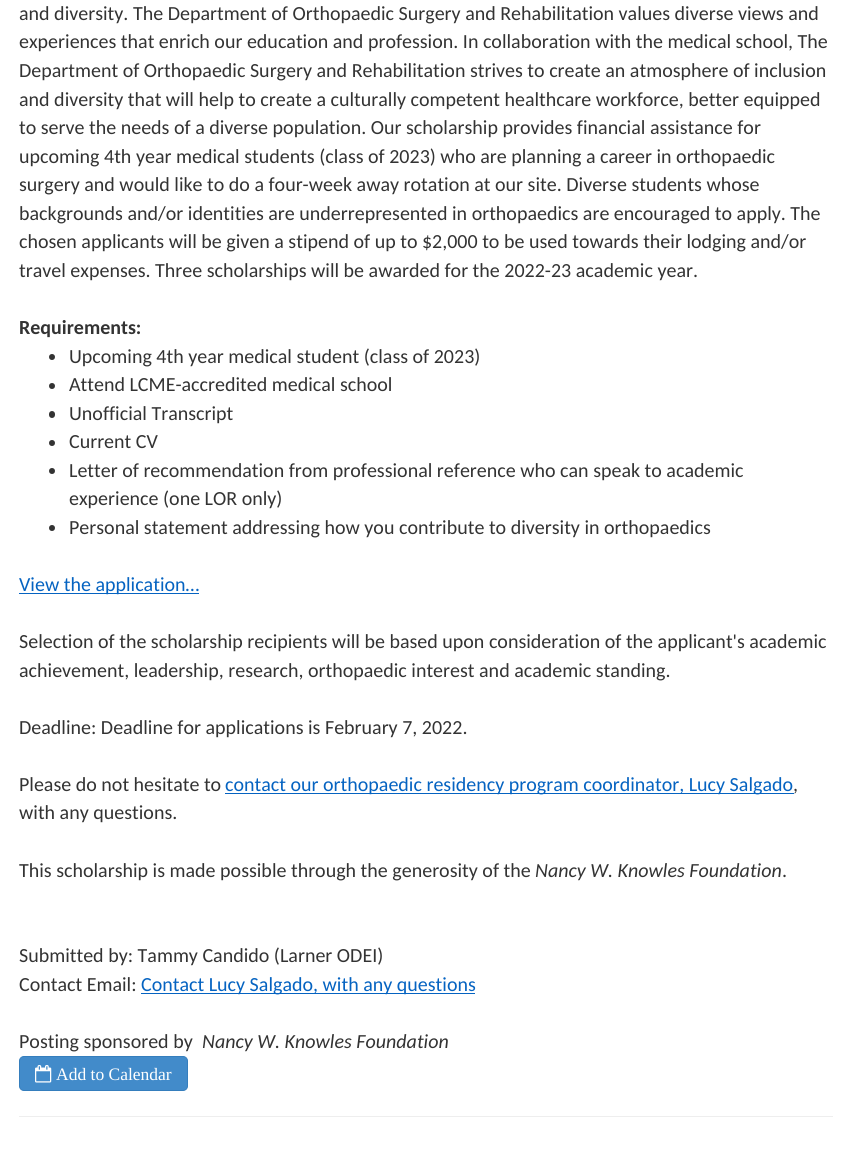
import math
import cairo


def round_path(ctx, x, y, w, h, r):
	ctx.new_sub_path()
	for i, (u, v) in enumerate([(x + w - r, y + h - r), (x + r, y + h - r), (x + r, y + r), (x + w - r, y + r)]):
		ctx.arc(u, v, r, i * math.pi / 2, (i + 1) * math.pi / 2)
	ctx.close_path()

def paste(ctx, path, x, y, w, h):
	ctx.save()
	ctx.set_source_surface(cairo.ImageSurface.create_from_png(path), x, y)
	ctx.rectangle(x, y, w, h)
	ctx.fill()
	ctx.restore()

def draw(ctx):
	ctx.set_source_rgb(1, 1, 1)
	ctx.paint()
	ctx.select_font_face('Carlito')
	ctx.set_font_size(20)
	ctx.set_source_rgb(0.2, 0.2, 0.2)
	for x, y, s in [
		(19, 20, 'and diversity. The Department of Orthopaedic Surgery and Rehabilitation values diverse views and'),
		(19, 48, 'experiences that enrich our education and profession. In collaboration with the medical school, The'),
		(19, 77, 'Department of Orthopaedic Surgery and Rehabilitation strives to create an atmosphere of inclusion'),
		(19, 106, 'and diversity that will help to create a culturally competent healthcare workforce, better equipped'),
		(19, 134, 'to serve the needs of a diverse population. Our scholarship provides financial assistance for'),
		(19, 163, 'upcoming 4th year medical students (class of 2023) who are planning a career in orthopaedic'),
		(19, 191, 'surgery and would like to do a four-week away rotation at our site. Diverse students whose'),
		(19, 220, 'backgrounds and/or identities are underrepresented in orthopaedics are encouraged to apply. The'),
		(19, 248, 'chosen applicants will be given a stipend of up to $2,000 to be used towards their lodging and/or'),
		(19, 277, 'travel expenses. Three scholarships will be awarded for the 2022-23 academic year.'),
	]:
		ctx.move_to(x, y)
		ctx.show_text(s)
	ctx.select_font_face('Carlito', cairo.FONT_SLANT_NORMAL, cairo.FONT_WEIGHT_BOLD)
	ctx.move_to(19, 334)
	ctx.show_text('Requirements:')
	ctx.new_path()
	ctx.arc(52, 357, 3, 0, 2 * math.pi)
	ctx.fill()
	ctx.select_font_face('Carlito')
	ctx.move_to(69, 363)
	ctx.show_text('Upcoming 4th year medical student (class of 2023)')
	ctx.new_path()
	ctx.arc(52, 386, 3, 0, 2 * math.pi)
	ctx.fill()
	ctx.move_to(69, 391)
	ctx.show_text('Attend LCME-accredited medical school')
	round_path(ctx, 49, 411, 6, 7, 3)
	ctx.fill()
	ctx.move_to(69, 420)
	ctx.show_text('Unofficial Transcript')
	ctx.new_path()
	ctx.arc(52, 443, 3, 0, 2 * math.pi)
	ctx.fill()
	ctx.move_to(69, 448)
	ctx.show_text('Current CV')
	ctx.new_path()
	ctx.arc(52, 471, 3, 0, 2 * math.pi)
	ctx.fill()
	ctx.move_to(69, 477)
	ctx.show_text('Letter of recommendation from professional reference who can speak to academic')
	ctx.move_to(69, 505)
	ctx.show_text('experience (one LOR only)')
	ctx.new_path()
	ctx.arc(52, 528, 3, 0, 2 * math.pi)
	ctx.fill()
	ctx.move_to(69, 534)
	ctx.show_text('Personal statement addressing how you contribute to diversity in orthopaedics')
	ctx.set_source_rgb(0.02, 0.388, 0.757)
	ctx.rectangle(19, 593, 180, 1)
	ctx.fill()
	ctx.move_to(19, 591)
	ctx.show_text('View the application…')
	ctx.set_source_rgb(0.2, 0.2, 0.2)
	for x, y, s in [
		(19, 648, 'Selection of the scholarship recipients will be based upon consideration of the applicant\'s academic'),
		(19, 677, 'achievement, leadership, research, orthopaedic interest and academic standing.'),
		(19, 734, 'Deadline: Deadline for applications is February 7, 2022.'),
		(19, 791, 'Please do not hesitate to'),
	]:
		ctx.move_to(x, y)
		ctx.show_text(s)
	ctx.set_source_rgb(0.02, 0.388, 0.757)
	ctx.rectangle(225, 793, 569, 1)
	ctx.fill()
	ctx.move_to(225, 791)
	ctx.show_text('contact our orthopaedic residency program coordinator, Lucy Salgado')
	ctx.set_source_rgb(0.2, 0.2, 0.2)
	for x, y, s in [
		(793, 791, ','),
		(19, 819, 'with any questions.'),
		(19, 877, 'This scholarship is made possible through the generosity of the'),
	]:
		ctx.move_to(x, y)
		ctx.show_text(s)
	ctx.select_font_face('Carlito', cairo.FONT_SLANT_ITALIC)
	ctx.move_to(535, 877)
	ctx.show_text('Nancy W. Knowles Foundation')
	ctx.select_font_face('Carlito')
	for x, y, s in [
		(782, 877, '.'),
		(19, 962, 'Submitted by: Tammy Candido (Larner ODEI)'),
		(19, 991, 'Contact Email:'),
	]:
		ctx.move_to(x, y)
		ctx.show_text(s)
	ctx.set_source_rgb(0.02, 0.388, 0.757)
	ctx.rectangle(141, 993, 334, 1)
	ctx.fill()
	ctx.move_to(141, 991)
	ctx.show_text('Contact Lucy Salgado, with any questions')
	ctx.set_source_rgb(0.2, 0.2, 0.2)
	ctx.move_to(19, 1048)
	ctx.show_text('Posting sponsored by')
	ctx.select_font_face('Carlito', cairo.FONT_SLANT_ITALIC)
	ctx.move_to(202, 1048)
	ctx.show_text('Nancy W. Knowles Foundation')
	ctx.set_source_rgb(0.259, 0.545, 0.792)
	round_path(ctx, 19.5, 1056.5, 168, 34, 4.5)
	ctx.fill_preserve()
	ctx.set_source_rgb(0.208, 0.494, 0.741)
	ctx.set_line_width(1)
	ctx.stroke()
	paste(ctx, 'media/1.png', 35, 1065, 17, 18)
	ctx.select_font_face('Liberation Serif')
	ctx.set_font_size(17.5)
	ctx.set_source_rgb(1, 1, 1)
	ctx.move_to(56, 1080)
	ctx.show_text('Add to Calendar')
	ctx.set_source_rgb(0.933, 0.933, 0.933)
	ctx.rectangle(19, 1116, 814, 1)
	ctx.fill()


surface = cairo.ImageSurface(cairo.FORMAT_RGB24, 851, 1160)
ctx = cairo.Context(surface)
options = cairo.FontOptions()
options.set_hint_metrics(cairo.HINT_METRICS_OFF)
options.set_hint_style(cairo.HINT_STYLE_NONE)
ctx.set_font_options(options)
ctx.set_miter_limit(4)
draw(ctx)
surface.write_to_png('image.png')
